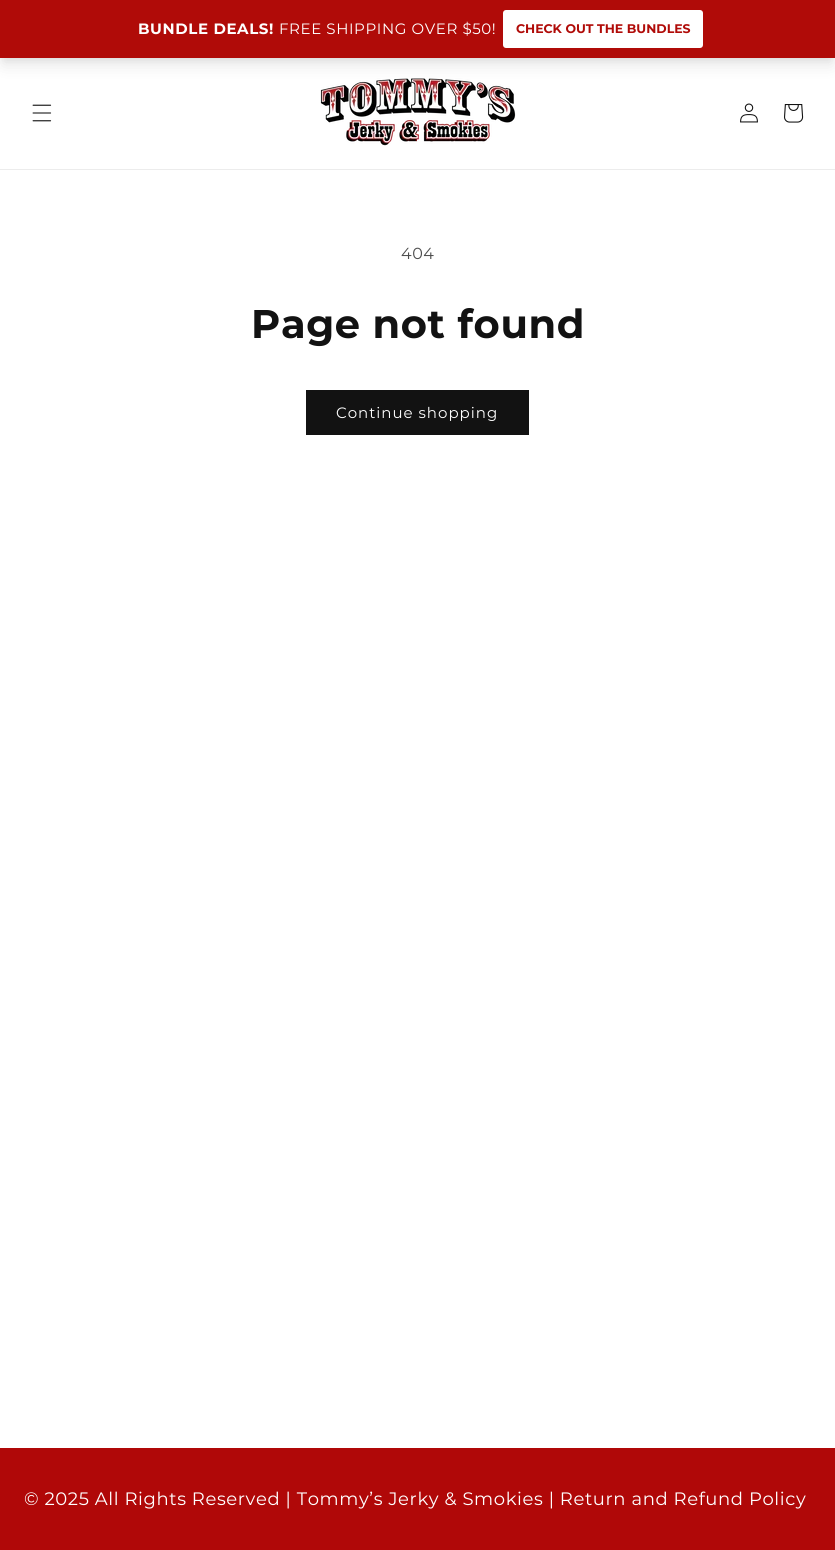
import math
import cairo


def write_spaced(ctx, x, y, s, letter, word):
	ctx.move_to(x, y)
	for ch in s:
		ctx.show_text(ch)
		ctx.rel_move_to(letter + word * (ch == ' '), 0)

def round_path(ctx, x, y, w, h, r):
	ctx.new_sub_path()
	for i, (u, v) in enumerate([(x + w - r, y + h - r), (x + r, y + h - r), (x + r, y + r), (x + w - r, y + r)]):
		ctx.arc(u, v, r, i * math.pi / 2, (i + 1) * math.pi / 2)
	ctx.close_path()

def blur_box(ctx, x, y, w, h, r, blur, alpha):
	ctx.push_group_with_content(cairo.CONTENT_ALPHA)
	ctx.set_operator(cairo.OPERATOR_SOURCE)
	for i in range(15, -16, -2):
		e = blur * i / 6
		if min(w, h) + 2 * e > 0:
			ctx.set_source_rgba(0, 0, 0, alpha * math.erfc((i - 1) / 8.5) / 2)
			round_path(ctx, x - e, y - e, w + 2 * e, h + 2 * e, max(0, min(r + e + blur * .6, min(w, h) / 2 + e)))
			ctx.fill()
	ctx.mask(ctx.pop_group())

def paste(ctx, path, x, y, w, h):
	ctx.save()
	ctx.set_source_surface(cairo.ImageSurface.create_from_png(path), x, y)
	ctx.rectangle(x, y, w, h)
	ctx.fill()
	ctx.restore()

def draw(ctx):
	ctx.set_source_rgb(1, 1, 1)
	ctx.paint()
	ctx.set_source_rgb(0, 0, 0)
	blur_box(ctx, 2, 6, 831, 54, 0, 3, 0.05)
	paste(ctx, 'media/2.png', 320, 78, 196, 68)
	blur_box(ctx, 3, 13, 829, 52, 0, 7.5, 0.1)
	ctx.set_source_rgb(0.69, 0.043, 0.035)
	ctx.rectangle(0, 0, 835, 58)
	ctx.fill()
	ctx.select_font_face('Montserrat', cairo.FONT_SLANT_NORMAL, cairo.FONT_WEIGHT_BOLD)
	ctx.set_font_size(15)
	ctx.set_source_rgb(1, 1, 1)
	write_spaced(ctx, 138, 34, 'BUNDLE DEALS!', 0.6, 0)
	ctx.select_font_face('Montserrat Thin')
	write_spaced(ctx, 279, 34, 'FREE SHIPPING OVER $50!', 0.6, 0)
	round_path(ctx, 503, 10, 200, 38, 3)
	ctx.fill()
	ctx.select_font_face('Montserrat', cairo.FONT_SLANT_NORMAL, cairo.FONT_WEIGHT_BOLD)
	ctx.set_font_size(12.5)
	ctx.set_source_rgb(0.69, 0.043, 0.035)
	ctx.move_to(516, 33)
	ctx.show_text('CHECK OUT THE BUNDLES')
	ctx.set_source_rgb(0.925, 0.925, 0.925)
	ctx.rectangle(0, 169, 835, 1)
	ctx.fill()
	paste(ctx, 'media/1.png', 32, 104, 20, 18)
	paste(ctx, 'media/3.png', 740, 103, 18, 20)
	paste(ctx, 'media/4.png', 784, 104, 20, 19)
	ctx.select_font_face('Montserrat Thin')
	ctx.set_font_size(16)
	ctx.set_source_rgb(0.302, 0.302, 0.302)
	write_spaced(ctx, 401, 259, '404', 0.6, 0)
	ctx.select_font_face('Montserrat', cairo.FONT_SLANT_NORMAL, cairo.FONT_WEIGHT_BOLD)
	ctx.set_font_size(40)
	ctx.set_source_rgb(0.071, 0.071, 0.071)
	write_spaced(ctx, 251, 338, 'Page not found', 0.6, 0)
	ctx.rectangle(306, 390, 223, 45)
	ctx.fill()
	ctx.select_font_face('Montserrat Thin')
	ctx.set_font_size(15)
	ctx.set_source_rgb(1, 1, 1)
	write_spaced(ctx, 336, 418, 'Continue shopping', 1, 0)
	ctx.set_source_rgb(0.69, 0.035, 0.035)
	ctx.rectangle(0, 1448, 835, 102)
	ctx.fill()
	ctx.set_font_size(18)
	ctx.set_source_rgb(1, 1, 1)
	write_spaced(ctx, 24, 1505, '© 2025 All Rights Reserved | Tommy’s Jerky & Smokies | Return and Refund Policy', 0.6, 0)


surface = cairo.ImageSurface(cairo.FORMAT_RGB24, 835, 1550)
ctx = cairo.Context(surface)
options = cairo.FontOptions()
options.set_hint_metrics(cairo.HINT_METRICS_OFF)
options.set_hint_style(cairo.HINT_STYLE_NONE)
ctx.set_font_options(options)
ctx.set_miter_limit(4)
draw(ctx)
surface.write_to_png('image.png')
